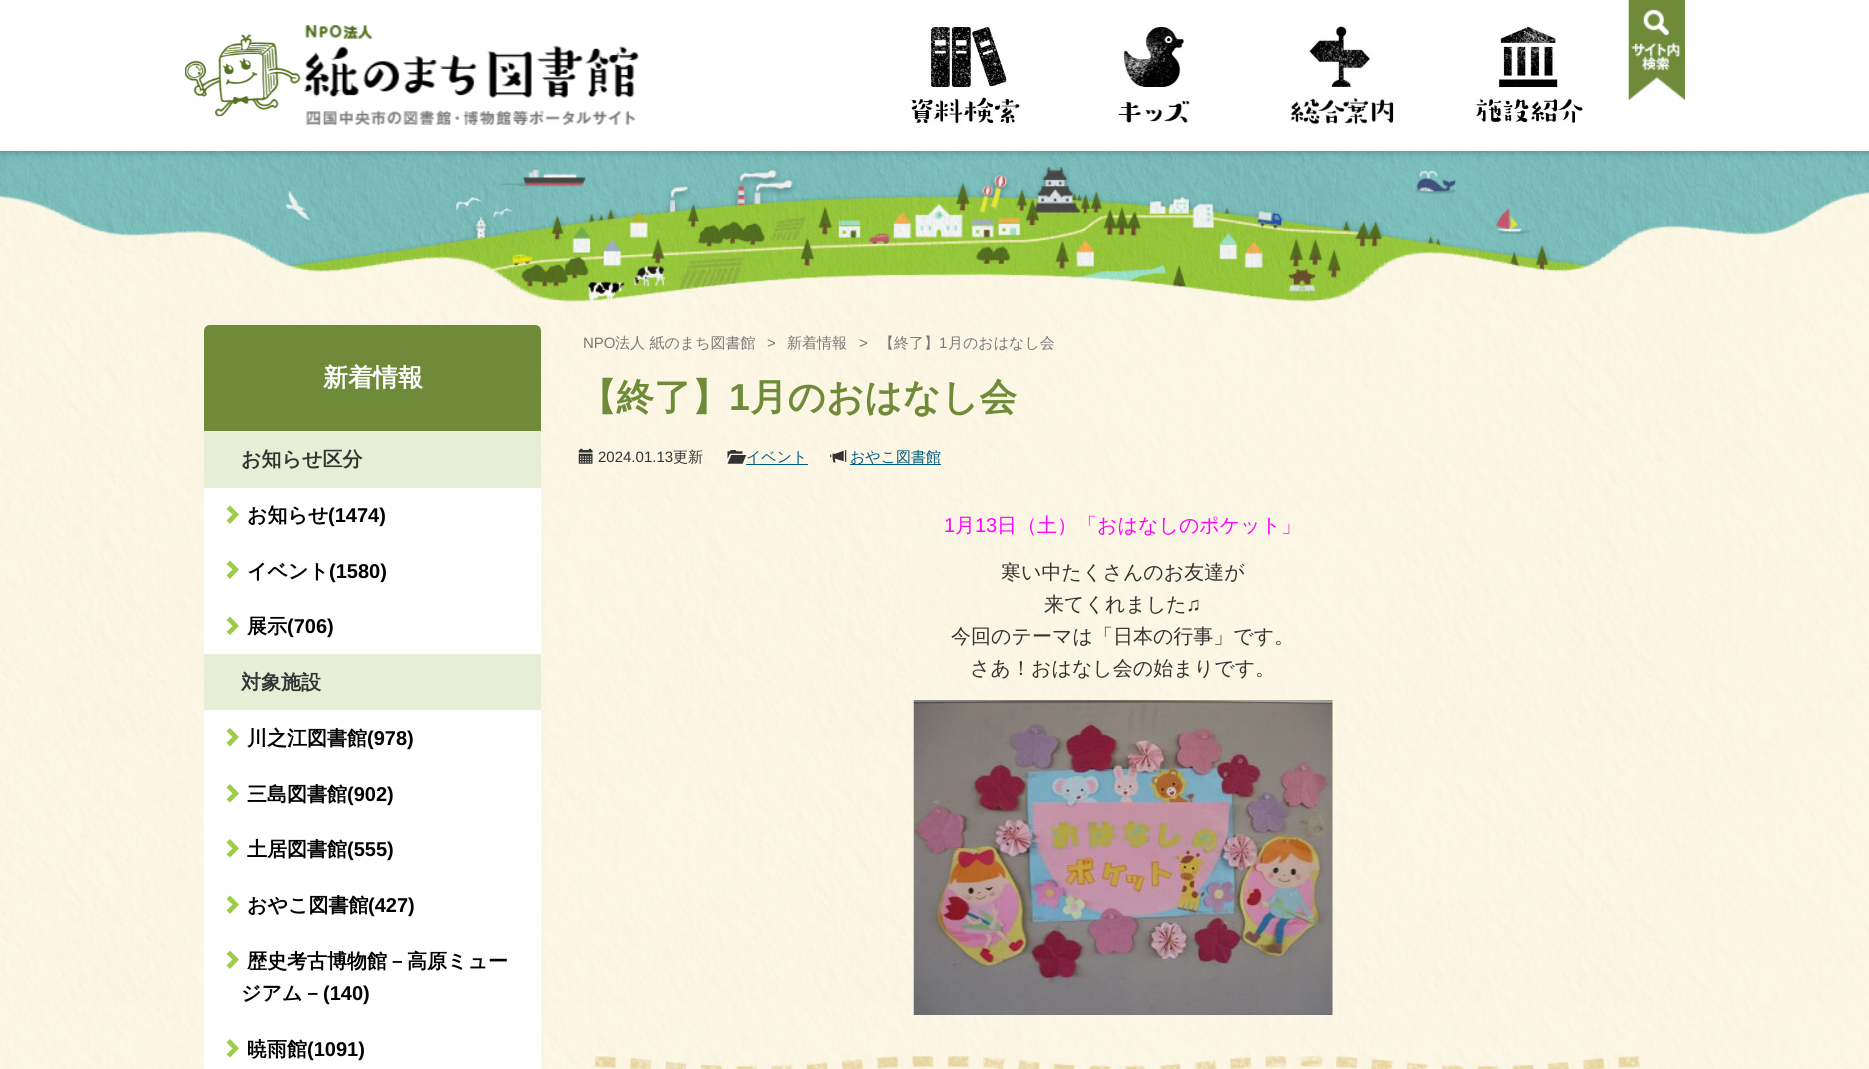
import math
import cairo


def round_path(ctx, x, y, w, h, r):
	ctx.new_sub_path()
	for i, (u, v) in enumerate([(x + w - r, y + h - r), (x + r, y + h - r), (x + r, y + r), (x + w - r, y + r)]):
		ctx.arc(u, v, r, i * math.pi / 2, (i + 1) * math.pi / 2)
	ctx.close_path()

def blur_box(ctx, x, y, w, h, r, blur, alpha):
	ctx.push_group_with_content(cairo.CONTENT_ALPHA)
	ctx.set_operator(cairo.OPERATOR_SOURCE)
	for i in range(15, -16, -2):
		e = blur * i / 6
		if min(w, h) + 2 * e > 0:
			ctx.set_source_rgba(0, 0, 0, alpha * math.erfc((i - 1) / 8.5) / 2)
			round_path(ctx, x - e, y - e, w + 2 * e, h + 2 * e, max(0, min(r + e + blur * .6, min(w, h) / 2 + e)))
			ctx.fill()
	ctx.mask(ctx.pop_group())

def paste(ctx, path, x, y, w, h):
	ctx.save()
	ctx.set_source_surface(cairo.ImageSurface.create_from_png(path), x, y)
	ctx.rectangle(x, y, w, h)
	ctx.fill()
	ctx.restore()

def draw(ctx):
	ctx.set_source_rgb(1, 1, 1)
	ctx.paint()
	paste(ctx, 'media/12.png', 0, 191, 1869, 878)
	paste(ctx, 'media/13.png', 0, 151, 1869, 152)
	ctx.set_source_rgb(0, 0, 0)
	blur_box(ctx, 0, 1, 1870, 152, 0, 3, 0.2)
	ctx.set_source_rgb(1, 1, 1)
	ctx.rectangle(0, 0, 1869, 151)
	ctx.fill()
	paste(ctx, 'media/1.png', 185, 34, 116, 83)
	paste(ctx, 'media/2.png', 303, 25, 336, 73)
	paste(ctx, 'media/3.png', 305, 110, 331, 15)
	paste(ctx, 'media/4.png', 908, 127, 114, 1)
	paste(ctx, 'media/5.png', 908, 23, 114, 104)
	paste(ctx, 'media/6.png', 1115, 23, 75, 100)
	paste(ctx, 'media/7.png', 1288, 23, 106, 105)
	paste(ctx, 'media/8.png', 1289, 26, 104, 102)
	paste(ctx, 'media/9.png', 1475, 23, 110, 2)
	paste(ctx, 'media/10.png', 1475, 25, 110, 99)
	paste(ctx, 'media/11.png', 1628, 0, 57, 100)
	ctx.set_source_rgb(0.435, 0.545, 0.227)
	ctx.new_path()
	ctx.move_to(210, 325)
	ctx.line_to(535, 325)
	ctx.curve_to(538.5, 325, 541, 327.5, 541, 331)
	ctx.line_to(541, 431)
	ctx.line_to(204, 431)
	ctx.line_to(204, 331)
	ctx.curve_to(204, 327.5, 206.5, 325, 210, 325)
	ctx.close_path()
	ctx.fill()
	ctx.select_font_face('WenQuanYi Zen Hei', cairo.FONT_SLANT_NORMAL, cairo.FONT_WEIGHT_BOLD)
	ctx.set_font_size(25)
	ctx.set_source_rgb(1, 1, 1)
	ctx.move_to(323, 386)
	ctx.show_text('新着情報')
	ctx.set_source_rgb(0.902, 0.933, 0.839)
	ctx.rectangle(204, 431, 337, 57)
	ctx.fill()
	ctx.set_font_size(20)
	ctx.set_source_rgb(0.2, 0.2, 0.2)
	ctx.move_to(241, 466)
	ctx.show_text('お知らせ区分')
	ctx.set_source_rgb(1, 1, 1)
	ctx.rectangle(204, 488, 337, 166)
	ctx.fill()
	ctx.set_source_rgb(0.616, 0.8, 0.286)
	ctx.new_path()
	ctx.move_to(239, 514.5)
	ctx.line_to(230, 524)
	ctx.line_to(226.5, 520.5)
	ctx.line_to(232.5, 514.5)
	ctx.line_to(226.5, 509)
	ctx.line_to(230, 505.5)
	ctx.close_path()
	ctx.fill()
	ctx.set_source_rgb(0, 0, 0)
	ctx.move_to(247, 522)
	ctx.show_text('お知らせ')
	ctx.select_font_face('Liberation Sans', cairo.FONT_SLANT_NORMAL, cairo.FONT_WEIGHT_BOLD)
	ctx.move_to(328, 522)
	ctx.show_text('(1474)')
	ctx.set_source_rgb(0.616, 0.8, 0.286)
	ctx.new_path()
	ctx.move_to(239, 569.5)
	ctx.line_to(230, 579)
	ctx.line_to(226.5, 575.5)
	ctx.line_to(232.5, 569.5)
	ctx.line_to(226.5, 564)
	ctx.line_to(230, 560.5)
	ctx.close_path()
	ctx.fill()
	ctx.select_font_face('WenQuanYi Zen Hei', cairo.FONT_SLANT_NORMAL, cairo.FONT_WEIGHT_BOLD)
	ctx.set_source_rgb(0, 0, 0)
	ctx.move_to(247, 578)
	ctx.show_text('イベント')
	ctx.select_font_face('Liberation Sans', cairo.FONT_SLANT_NORMAL, cairo.FONT_WEIGHT_BOLD)
	ctx.move_to(329, 578)
	ctx.show_text('(1580)')
	ctx.set_source_rgb(0.616, 0.8, 0.286)
	ctx.new_path()
	ctx.move_to(239, 626)
	ctx.line_to(230, 635)
	ctx.line_to(226.5, 632)
	ctx.line_to(232.5, 626)
	ctx.line_to(226.5, 620)
	ctx.line_to(230, 616.5)
	ctx.close_path()
	ctx.fill()
	ctx.select_font_face('WenQuanYi Zen Hei', cairo.FONT_SLANT_NORMAL, cairo.FONT_WEIGHT_BOLD)
	ctx.set_source_rgb(0, 0, 0)
	ctx.move_to(247, 633)
	ctx.show_text('展示')
	ctx.select_font_face('Liberation Sans', cairo.FONT_SLANT_NORMAL, cairo.FONT_WEIGHT_BOLD)
	ctx.move_to(287, 633)
	ctx.show_text('(706)')
	ctx.set_source_rgb(0.902, 0.933, 0.839)
	ctx.rectangle(204, 654, 337, 56)
	ctx.fill()
	ctx.select_font_face('WenQuanYi Zen Hei', cairo.FONT_SLANT_NORMAL, cairo.FONT_WEIGHT_BOLD)
	ctx.set_source_rgb(0.2, 0.2, 0.2)
	ctx.move_to(241, 689)
	ctx.show_text('対象施設')
	ctx.set_source_rgb(1, 1, 1)
	ctx.rectangle(204, 710, 337, 359)
	ctx.fill()
	ctx.set_source_rgb(0.616, 0.8, 0.286)
	ctx.new_path()
	ctx.move_to(239, 737)
	ctx.line_to(230, 746.5)
	ctx.line_to(226.5, 743)
	ctx.line_to(232.5, 737)
	ctx.line_to(226.5, 731)
	ctx.line_to(230, 728)
	ctx.close_path()
	ctx.fill()
	ctx.set_source_rgb(0, 0, 0)
	ctx.move_to(247, 745)
	ctx.show_text('川之江図書館')
	ctx.select_font_face('Liberation Sans', cairo.FONT_SLANT_NORMAL, cairo.FONT_WEIGHT_BOLD)
	ctx.move_to(367, 745)
	ctx.show_text('(978)')
	ctx.set_source_rgb(0.616, 0.8, 0.286)
	ctx.new_path()
	ctx.move_to(239, 793.5)
	ctx.line_to(230, 802.5)
	ctx.line_to(226.5, 799.5)
	ctx.line_to(232.5, 793.5)
	ctx.line_to(226.5, 787.5)
	ctx.line_to(230, 784)
	ctx.close_path()
	ctx.fill()
	ctx.select_font_face('WenQuanYi Zen Hei', cairo.FONT_SLANT_NORMAL, cairo.FONT_WEIGHT_BOLD)
	ctx.set_source_rgb(0, 0, 0)
	ctx.move_to(247, 801)
	ctx.show_text('三島図書館')
	ctx.select_font_face('Liberation Sans', cairo.FONT_SLANT_NORMAL, cairo.FONT_WEIGHT_BOLD)
	ctx.move_to(347, 801)
	ctx.show_text('(902)')
	ctx.set_source_rgb(0.616, 0.8, 0.286)
	ctx.new_path()
	ctx.move_to(239, 848.5)
	ctx.line_to(230, 857.5)
	ctx.line_to(226.5, 854.5)
	ctx.line_to(232.5, 848.5)
	ctx.line_to(226.5, 842.5)
	ctx.line_to(230, 839)
	ctx.close_path()
	ctx.fill()
	ctx.select_font_face('WenQuanYi Zen Hei', cairo.FONT_SLANT_NORMAL, cairo.FONT_WEIGHT_BOLD)
	ctx.set_source_rgb(0, 0, 0)
	ctx.move_to(247, 856)
	ctx.show_text('土居図書館')
	ctx.select_font_face('Liberation Sans', cairo.FONT_SLANT_NORMAL, cairo.FONT_WEIGHT_BOLD)
	ctx.move_to(347, 856)
	ctx.show_text('(555)')
	ctx.set_source_rgb(0.616, 0.8, 0.286)
	ctx.new_path()
	ctx.move_to(239, 904.5)
	ctx.line_to(230, 914)
	ctx.line_to(226.5, 910.5)
	ctx.line_to(232.5, 904.5)
	ctx.line_to(226.5, 899)
	ctx.line_to(230, 895.5)
	ctx.close_path()
	ctx.fill()
	ctx.select_font_face('WenQuanYi Zen Hei', cairo.FONT_SLANT_NORMAL, cairo.FONT_WEIGHT_BOLD)
	ctx.set_source_rgb(0, 0, 0)
	ctx.move_to(247, 912)
	ctx.show_text('おやこ図書館')
	ctx.select_font_face('Liberation Sans', cairo.FONT_SLANT_NORMAL, cairo.FONT_WEIGHT_BOLD)
	ctx.move_to(368, 912)
	ctx.show_text('(427)')
	ctx.set_source_rgb(0.616, 0.8, 0.286)
	ctx.new_path()
	ctx.move_to(239, 959.5)
	ctx.line_to(230, 969)
	ctx.line_to(226.5, 965.5)
	ctx.line_to(232.5, 959.5)
	ctx.line_to(226.5, 954)
	ctx.line_to(230, 950.5)
	ctx.close_path()
	ctx.fill()
	ctx.select_font_face('WenQuanYi Zen Hei', cairo.FONT_SLANT_NORMAL, cairo.FONT_WEIGHT_BOLD)
	ctx.set_source_rgb(0, 0, 0)
	ctx.move_to(247, 968)
	ctx.show_text('歴史考古博物館－高原ミュー')
	ctx.move_to(241, 1000)
	ctx.show_text('ジアム－')
	ctx.select_font_face('Liberation Sans', cairo.FONT_SLANT_NORMAL, cairo.FONT_WEIGHT_BOLD)
	ctx.move_to(323, 1000)
	ctx.show_text('(140)')
	ctx.set_source_rgb(0.616, 0.8, 0.286)
	ctx.new_path()
	ctx.move_to(239, 1048.5)
	ctx.line_to(230, 1057.5)
	ctx.line_to(226.5, 1054.5)
	ctx.line_to(232.5, 1048.5)
	ctx.line_to(226.5, 1042.5)
	ctx.line_to(230, 1039)
	ctx.close_path()
	ctx.fill()
	ctx.select_font_face('WenQuanYi Zen Hei', cairo.FONT_SLANT_NORMAL, cairo.FONT_WEIGHT_BOLD)
	ctx.set_source_rgb(0, 0, 0)
	ctx.move_to(247, 1056)
	ctx.show_text('暁雨館')
	ctx.select_font_face('Liberation Sans', cairo.FONT_SLANT_NORMAL, cairo.FONT_WEIGHT_BOLD)
	ctx.move_to(307, 1056)
	ctx.show_text('(1091)')
	ctx.select_font_face('Liberation Sans')
	ctx.set_font_size(15)
	ctx.set_source_rgb(0.467, 0.467, 0.467)
	ctx.move_to(583, 348)
	ctx.show_text('NPO')
	ctx.select_font_face('WenQuanYi Zen Hei Medium')
	ctx.move_to(615, 348)
	ctx.show_text('法人 紙のまち図書館')
	ctx.select_font_face('Liberation Sans')
	ctx.move_to(767, 348)
	ctx.show_text('>')
	ctx.select_font_face('WenQuanYi Zen Hei Medium')
	ctx.move_to(787, 348)
	ctx.show_text('新着情報')
	ctx.select_font_face('Liberation Sans')
	ctx.move_to(859, 348)
	ctx.show_text('>')
	ctx.select_font_face('WenQuanYi Zen Hei Medium')
	ctx.move_to(879, 348)
	ctx.show_text('【終了】')
	ctx.select_font_face('Liberation Sans')
	ctx.move_to(939, 348)
	ctx.show_text('1')
	ctx.select_font_face('WenQuanYi Zen Hei Medium')
	ctx.move_to(948, 348)
	ctx.show_text('月のおはなし会')
	ctx.select_font_face('WenQuanYi Zen Hei', cairo.FONT_SLANT_NORMAL, cairo.FONT_WEIGHT_BOLD)
	ctx.set_font_size(37.5)
	ctx.set_source_rgb(0.435, 0.545, 0.227)
	ctx.move_to(579, 410)
	ctx.show_text('【終了】')
	ctx.select_font_face('Liberation Sans', cairo.FONT_SLANT_NORMAL, cairo.FONT_WEIGHT_BOLD)
	ctx.move_to(729, 410)
	ctx.show_text('1')
	ctx.select_font_face('WenQuanYi Zen Hei', cairo.FONT_SLANT_NORMAL, cairo.FONT_WEIGHT_BOLD)
	ctx.move_to(750, 410)
	ctx.show_text('月のおはなし会')
	paste(ctx, 'media/14.png', 578, 448, 15, 16)
	ctx.select_font_face('Liberation Sans')
	ctx.set_font_size(15)
	ctx.set_source_rgb(0.2, 0.2, 0.2)
	ctx.move_to(598, 462)
	ctx.show_text('2024.01.13')
	ctx.select_font_face('WenQuanYi Zen Hei Medium')
	ctx.move_to(673, 462)
	ctx.show_text('更新')
	ctx.set_source_rgb(0, 0.349, 0.51)
	ctx.move_to(746, 462)
	ctx.show_text('イベント')
	paste(ctx, 'media/15.png', 727, 450, 20, 14)
	ctx.rectangle(746, 464, 62, 1)
	ctx.fill()
	paste(ctx, 'media/16.png', 830, 450, 17, 13)
	ctx.rectangle(850, 464, 91, 1)
	ctx.fill()
	ctx.move_to(850, 462)
	ctx.show_text('おやこ図書館')
	ctx.select_font_face('Liberation Sans')
	ctx.set_font_size(20)
	ctx.set_source_rgb(1, 0, 1)
	ctx.move_to(944, 532)
	ctx.show_text('1')
	ctx.select_font_face('WenQuanYi Zen Hei Medium')
	ctx.move_to(955, 532)
	ctx.show_text('月')
	ctx.select_font_face('Liberation Sans')
	ctx.move_to(975, 532)
	ctx.show_text('13')
	ctx.select_font_face('WenQuanYi Zen Hei Medium')
	ctx.move_to(997, 532)
	ctx.show_text('日（土）「おはなしのポケット」')
	ctx.set_source_rgb(0.2, 0.2, 0.2)
	ctx.move_to(1001, 579)
	ctx.show_text('寒い中たくさんのお友達が')
	ctx.move_to(1044, 611)
	ctx.show_text('来てくれました')
	ctx.select_font_face('Liberation Sans')
	ctx.move_to(1186, 611)
	ctx.show_text('♫')
	ctx.select_font_face('WenQuanYi Zen Hei Medium')
	ctx.move_to(951, 643)
	ctx.show_text('今回のテーマは「日本の行事」です。')
	ctx.move_to(970, 675)
	ctx.show_text('さあ！おはなし会の始まりです。')
	paste(ctx, 'media/17.png', 913, 700, 420, 315)
	paste(ctx, 'media/18.png', 594, 1056, 1046, 13)


surface = cairo.ImageSurface(cairo.FORMAT_RGB24, 1869, 1069)
ctx = cairo.Context(surface)
options = cairo.FontOptions()
options.set_hint_metrics(cairo.HINT_METRICS_OFF)
options.set_hint_style(cairo.HINT_STYLE_NONE)
ctx.set_font_options(options)
ctx.set_miter_limit(4)
draw(ctx)
surface.write_to_png('image.png')
